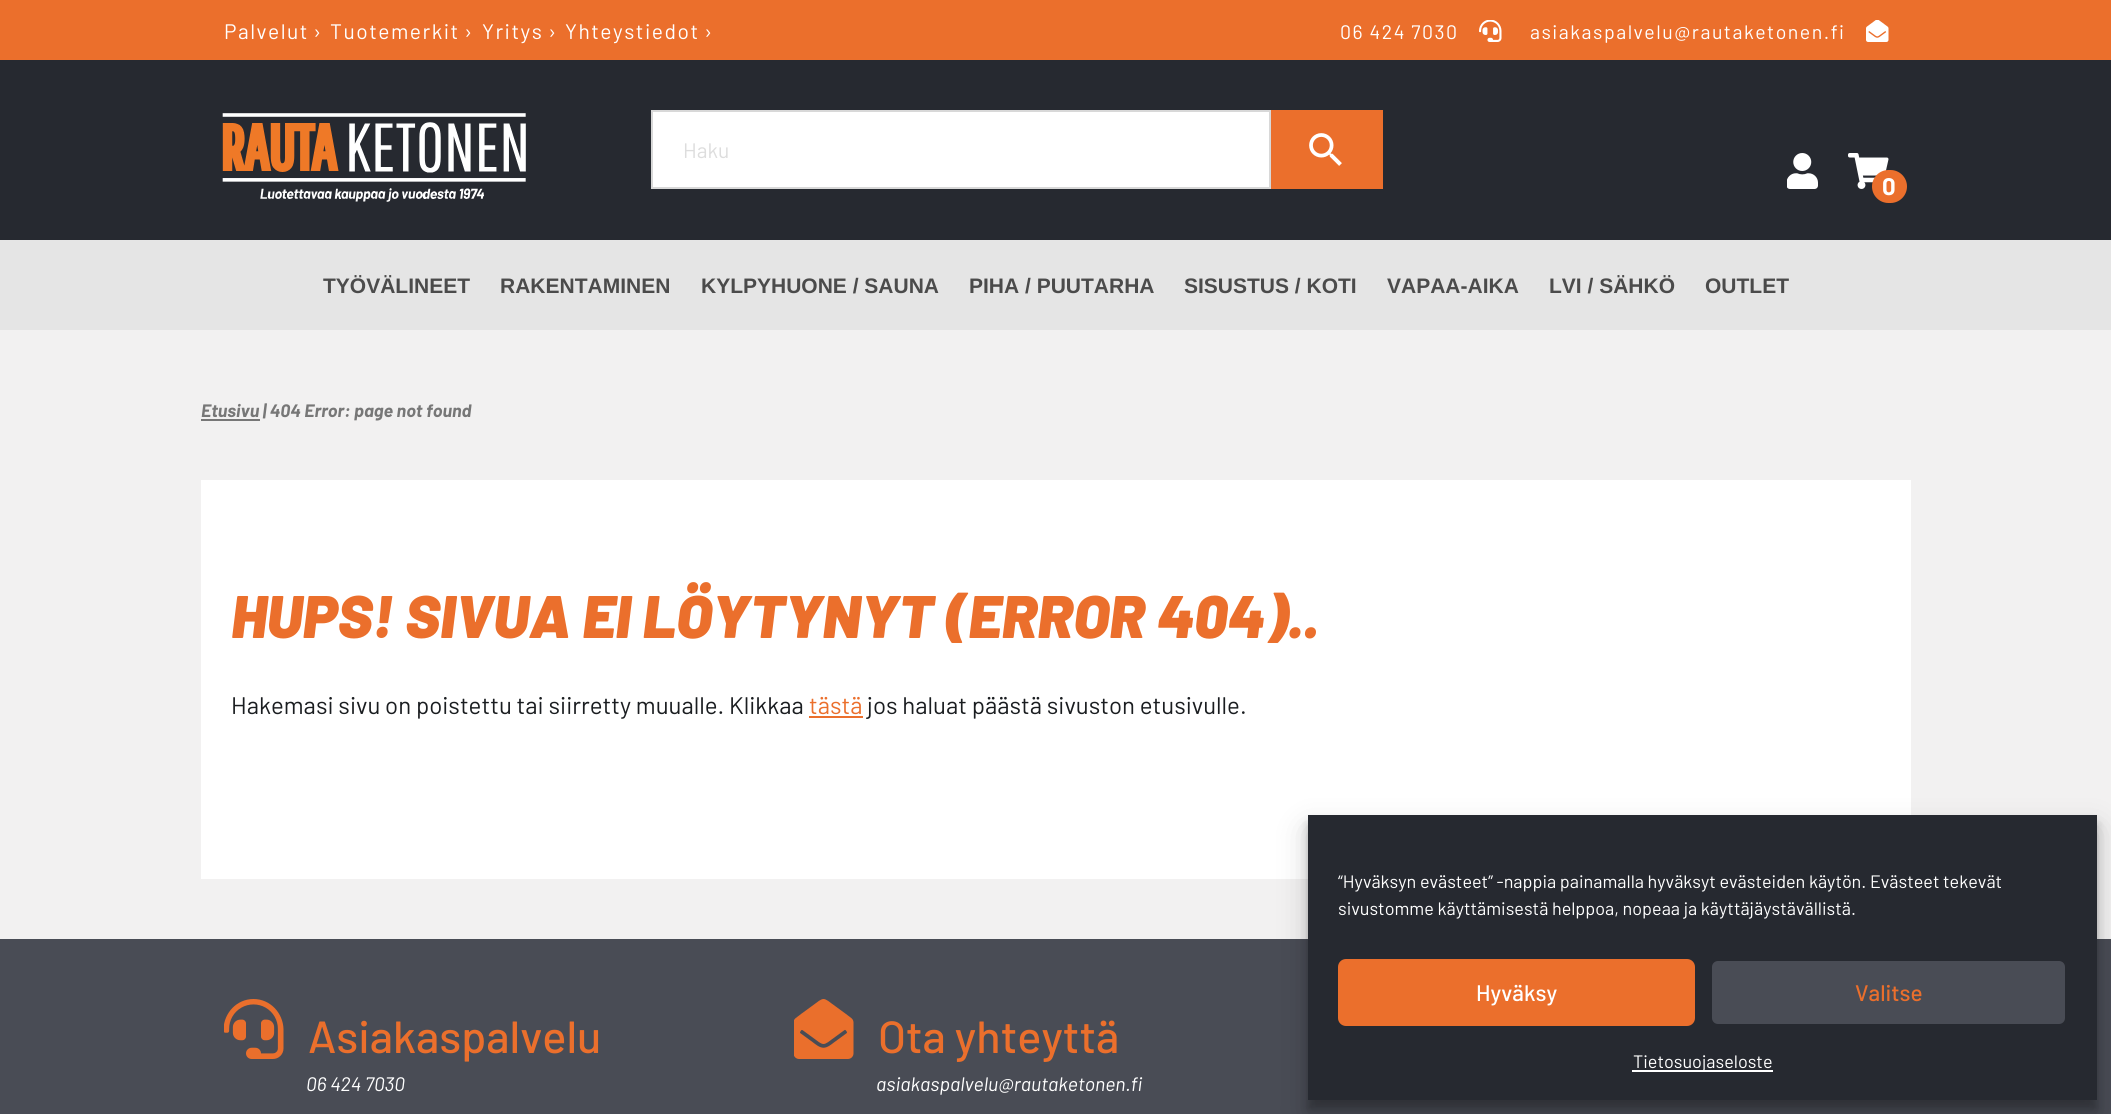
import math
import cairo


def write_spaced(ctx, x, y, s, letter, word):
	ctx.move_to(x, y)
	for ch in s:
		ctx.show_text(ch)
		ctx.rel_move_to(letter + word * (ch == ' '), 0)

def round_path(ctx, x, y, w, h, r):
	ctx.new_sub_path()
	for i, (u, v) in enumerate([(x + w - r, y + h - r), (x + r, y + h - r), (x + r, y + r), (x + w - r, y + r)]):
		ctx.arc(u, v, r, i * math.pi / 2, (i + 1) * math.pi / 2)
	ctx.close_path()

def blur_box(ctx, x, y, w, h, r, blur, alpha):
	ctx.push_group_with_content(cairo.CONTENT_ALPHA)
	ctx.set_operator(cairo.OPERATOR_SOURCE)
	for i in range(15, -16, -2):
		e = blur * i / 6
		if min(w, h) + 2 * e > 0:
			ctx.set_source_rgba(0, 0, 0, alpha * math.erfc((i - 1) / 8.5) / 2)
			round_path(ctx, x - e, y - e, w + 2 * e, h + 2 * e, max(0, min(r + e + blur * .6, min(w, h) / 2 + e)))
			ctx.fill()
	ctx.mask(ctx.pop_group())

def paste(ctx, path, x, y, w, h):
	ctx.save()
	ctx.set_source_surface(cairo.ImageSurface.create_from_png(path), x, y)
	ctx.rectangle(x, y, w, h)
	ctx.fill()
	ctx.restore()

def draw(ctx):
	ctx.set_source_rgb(0.949, 0.945, 0.945)
	ctx.paint()
	ctx.set_source_rgb(0.918, 0.435, 0.173)
	ctx.rectangle(0, 0, 2111, 60)
	ctx.fill()
	ctx.select_font_face('Barlow')
	ctx.set_font_size(21)
	ctx.set_source_rgb(1, 1, 1)
	for x, y, s in [
		(224, 39, 'Palvelut'),
		(313, 39, '›'),
		(330, 39, 'Tuotemerkit'),
		(464, 39, '›'),
		(482, 39, 'Yritys'),
		(548, 39, '›'),
		(565, 39, 'Yhteystiedot'),
		(704, 39, '›'),
	]:
		write_spaced(ctx, x, y, s, 1.5, 0)
	ctx.set_font_size(19.5)
	write_spaced(ctx, 1340, 39, '06 424 7030', 1.5, 0)
	paste(ctx, 'media/1.png', 1479, 20, 23, 22)
	write_spaced(ctx, 1530, 39, 'asiakaspalvelu@rautaketonen.fi', 1.5, 0)
	paste(ctx, 'media/2.png', 1866, 20, 23, 22)
	ctx.set_source_rgb(0.149, 0.161, 0.188)
	ctx.rectangle(0, 60, 2111, 180)
	ctx.fill()
	paste(ctx, 'media/3.png', 222, 113, 304, 89)
	ctx.set_source_rgb(1, 1, 1)
	ctx.rectangle(652, 111, 618, 77)
	ctx.fill_preserve()
	ctx.set_source_rgb(0.847, 0.847, 0.847)
	ctx.stroke()
	ctx.set_font_size(21)
	ctx.set_source_rgb(0.867, 0.867, 0.867)
	ctx.move_to(683, 158)
	ctx.show_text('Haku')
	ctx.set_source_rgb(0.918, 0.435, 0.173)
	ctx.rectangle(1271, 110, 112, 79)
	ctx.fill()
	paste(ctx, 'media/4.png', 1309, 133, 33, 33)
	paste(ctx, 'media/5.png', 1787, 153, 31, 36)
	paste(ctx, 'media/6.png', 1848, 153, 41, 36)
	round_path(ctx, 1872, 170, 35, 33, 16.5)
	ctx.fill()
	ctx.select_font_face('Barlow', cairo.FONT_SLANT_NORMAL, cairo.FONT_WEIGHT_BOLD)
	ctx.set_font_size(24)
	ctx.set_source_rgb(1, 1, 1)
	ctx.move_to(1882, 195)
	ctx.show_text('0')
	ctx.set_source_rgb(0.898, 0.898, 0.898)
	ctx.rectangle(0, 240, 2111, 90)
	ctx.fill()
	ctx.select_font_face('Liberation Sans', cairo.FONT_SLANT_NORMAL, cairo.FONT_WEIGHT_BOLD)
	ctx.set_font_size(21)
	ctx.set_source_rgb(0.294, 0.294, 0.294)
	for x, y, s in [
		(323, 293, 'TYÖVÄLINEET'),
		(500, 293, 'RAKENTAMINEN'),
		(701, 293, 'KYLPYHUONE / SAUNA'),
		(969, 293, 'PIHA / PUUTARHA'),
		(1184, 293, 'SISUSTUS / KOTI'),
		(1387, 293, 'VAPAA-AIKA'),
		(1549, 293, 'LVI / SÄHKÖ'),
		(1705, 293, 'OUTLET'),
	]:
		ctx.move_to(x, y)
		ctx.show_text(s)
	ctx.set_source_rgb(0.467, 0.467, 0.467)
	ctx.rectangle(201, 419, 59, 2)
	ctx.fill()
	ctx.select_font_face('Barlow', cairo.FONT_SLANT_ITALIC, cairo.FONT_WEIGHT_BOLD)
	ctx.set_font_size(18)
	ctx.move_to(201, 417)
	ctx.show_text('Etusivu | 404 Error: page not found')
	ctx.set_source_rgb(1, 1, 1)
	ctx.rectangle(201, 480, 1710, 399)
	ctx.fill()
	ctx.select_font_face('Barlow Black', cairo.FONT_SLANT_ITALIC)
	ctx.set_font_size(60)
	ctx.set_source_rgb(0.918, 0.435, 0.173)
	ctx.move_to(231, 638)
	ctx.show_text('HUPS! SIVUA EI LÖYTYNYT (ERROR 404)..')
	ctx.select_font_face('Barlow')
	ctx.set_font_size(24)
	ctx.set_source_rgb(0.102, 0.114, 0.125)
	ctx.move_to(231, 714)
	ctx.show_text('Hakemasi sivu on poistettu tai siirretty muualle. Klikkaa')
	ctx.set_source_rgb(0.918, 0.435, 0.173)
	ctx.move_to(809, 714)
	ctx.show_text('tästä')
	ctx.rectangle(809, 716, 54, 2)
	ctx.fill()
	ctx.set_source_rgb(0.102, 0.114, 0.125)
	ctx.move_to(867, 714)
	ctx.show_text('jos haluat päästä sivuston etusivulle.')
	ctx.set_source_rgb(0.286, 0.298, 0.333)
	ctx.rectangle(0, 939, 2111, 175)
	ctx.fill()
	paste(ctx, 'media/7.png', 224, 999, 60, 60)
	ctx.select_font_face('Barlow Medium')
	ctx.set_font_size(45)
	ctx.set_source_rgb(0.918, 0.435, 0.173)
	ctx.move_to(308, 1053)
	ctx.show_text('Asiakaspalvelu')
	ctx.select_font_face('Barlow', cairo.FONT_SLANT_ITALIC)
	ctx.set_font_size(19.5)
	ctx.set_source_rgb(1, 1, 1)
	ctx.move_to(306, 1091)
	ctx.show_text('06 424 7030')
	paste(ctx, 'media/8.png', 794, 999, 60, 60)
	ctx.select_font_face('Barlow Medium')
	ctx.set_font_size(45)
	ctx.set_source_rgb(0.918, 0.435, 0.173)
	ctx.move_to(878, 1053)
	ctx.show_text('Ota yhteyttä')
	ctx.select_font_face('Barlow', cairo.FONT_SLANT_ITALIC)
	ctx.set_font_size(19.5)
	ctx.set_source_rgb(1, 1, 1)
	ctx.move_to(876, 1091)
	ctx.show_text('asiakaspalvelu@rautaketonen.fi')
	ctx.set_source_rgb(0, 0, 0)
	blur_box(ctx, 1308, 824, 789, 285, 0, 4.5, 0.23)
	blur_box(ctx, 1308, 830, 789, 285, 0, 15, 0.19)
	ctx.set_source_rgb(0.149, 0.161, 0.188)
	ctx.rectangle(1308, 815, 789, 285)
	ctx.fill()
	ctx.select_font_face('Barlow')
	ctx.set_font_size(18)
	ctx.set_source_rgb(1, 1, 1)
	ctx.move_to(1338, 888)
	ctx.show_text('“Hyväksyn evästeet” -nappia painamalla hyväksyt evästeiden käytön. Evästeet tekevät')
	ctx.move_to(1338, 915)
	ctx.show_text('sivustomme käyttämisestä helppoa, nopeaa ja käyttäjäystävällistä.')
	ctx.set_source_rgb(0.918, 0.435, 0.173)
	round_path(ctx, 1339, 960, 355, 65, 7)
	ctx.fill_preserve()
	ctx.stroke()
	ctx.select_font_face('Barlow Medium')
	ctx.set_font_size(22.5)
	ctx.set_source_rgb(1, 1, 1)
	ctx.move_to(1476, 1001)
	ctx.show_text('Hyväksy')
	ctx.set_source_rgb(0.286, 0.298, 0.333)
	round_path(ctx, 1711, 960, 355, 65, 7)
	ctx.fill_preserve()
	ctx.set_source_rgb(0.149, 0.161, 0.188)
	ctx.stroke()
	ctx.set_source_rgb(0.918, 0.435, 0.173)
	ctx.move_to(1855, 1001)
	ctx.show_text('Valitse')
	ctx.set_source_rgb(1, 1, 1)
	ctx.rectangle(1632, 1070, 141, 2)
	ctx.fill()
	ctx.select_font_face('Barlow')
	ctx.set_font_size(18)
	ctx.move_to(1633, 1068)
	ctx.show_text('Tietosuojaseloste')


surface = cairo.ImageSurface(cairo.FORMAT_RGB24, 2111, 1114)
ctx = cairo.Context(surface)
options = cairo.FontOptions()
options.set_hint_metrics(cairo.HINT_METRICS_OFF)
options.set_hint_style(cairo.HINT_STYLE_NONE)
ctx.set_font_options(options)
ctx.set_miter_limit(4)
draw(ctx)
surface.write_to_png('image.png')
